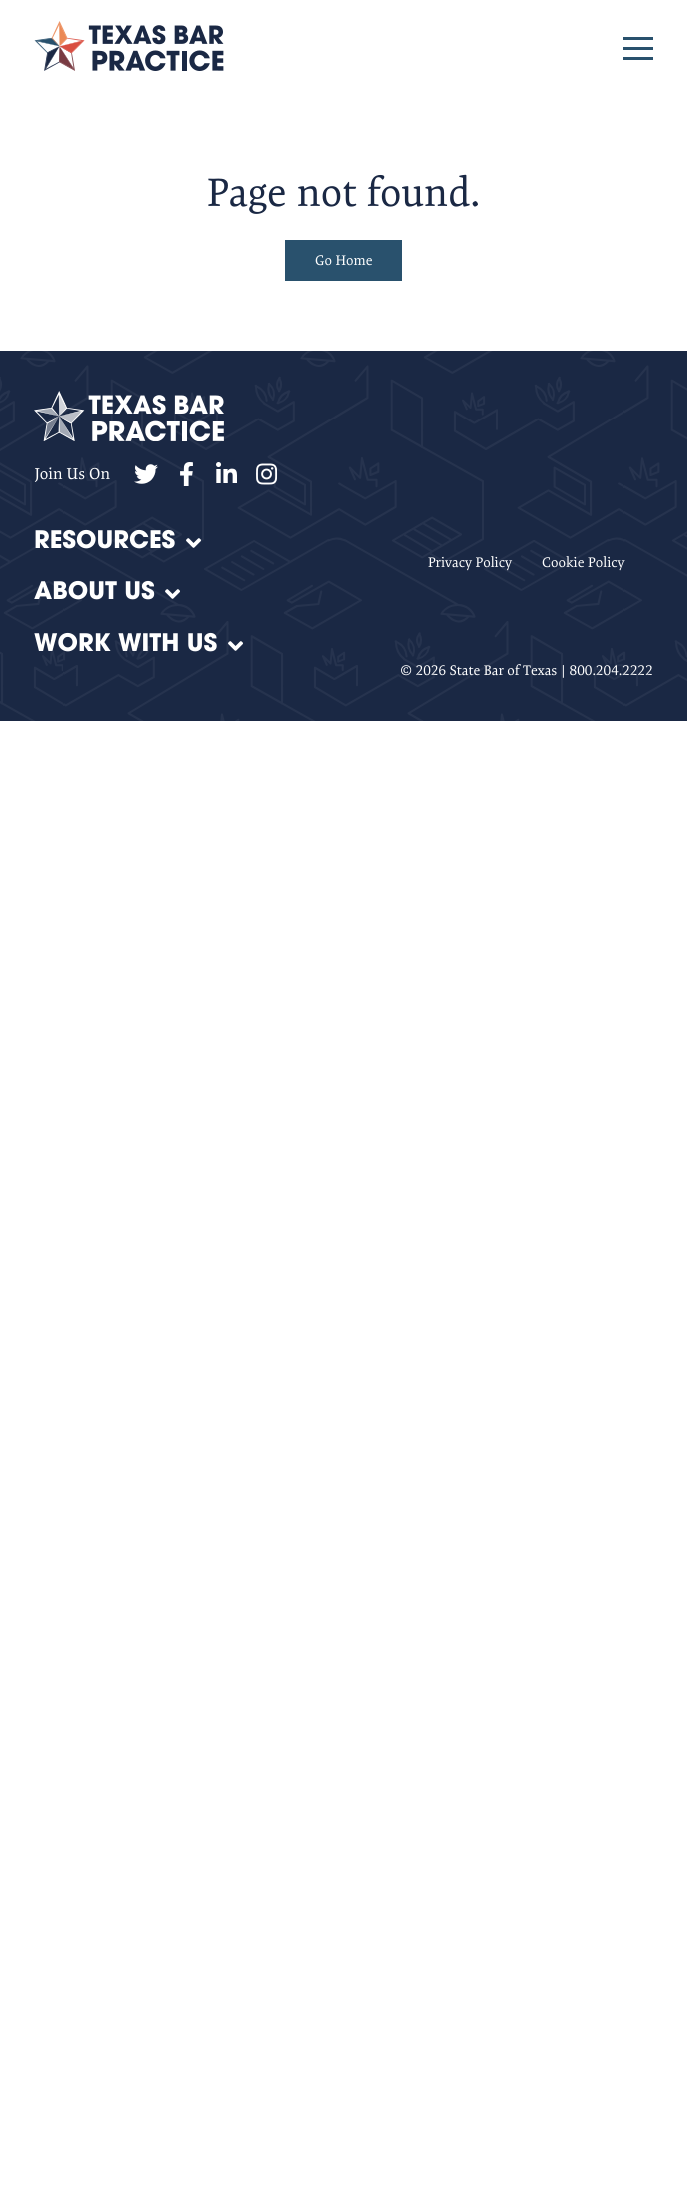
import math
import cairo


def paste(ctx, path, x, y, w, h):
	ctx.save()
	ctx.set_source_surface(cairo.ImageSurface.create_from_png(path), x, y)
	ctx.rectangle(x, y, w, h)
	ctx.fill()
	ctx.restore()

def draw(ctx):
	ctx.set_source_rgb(1, 1, 1)
	ctx.paint()
	paste(ctx, 'media/1.png', 34, 21, 190, 50)
	ctx.set_source_rgb(0.161, 0.318, 0.427)
	ctx.rectangle(623, 37, 30, 3)
	ctx.rectangle(623, 47, 30, 3)
	ctx.rectangle(623, 57, 30, 3)
	ctx.fill()
	ctx.select_font_face('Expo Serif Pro')
	ctx.set_font_size(40)
	ctx.set_source_rgb(0.102, 0.157, 0.267)
	ctx.move_to(207, 206)
	ctx.show_text('Page not found.')
	ctx.set_source_rgb(0.161, 0.318, 0.427)
	ctx.rectangle(285, 240, 117, 41)
	ctx.fill()
	ctx.set_font_size(14)
	ctx.set_source_rgb(1, 1, 1)
	ctx.move_to(315, 265)
	ctx.show_text('Go Home')
	paste(ctx, 'media/2.png', 0, 351, 687, 370)
	paste(ctx, 'media/3.png', 34, 391, 190, 50)
	ctx.set_font_size(16)
	ctx.move_to(35, 479)
	ctx.show_text('Join Us On')
	paste(ctx, 'media/4.png', 134, 464, 24, 20)
	paste(ctx, 'media/5.png', 180, 462, 13, 24)
	paste(ctx, 'media/6.png', 216, 462, 21, 21)
	paste(ctx, 'media/7.png', 256, 463, 22, 22)
	ctx.select_font_face('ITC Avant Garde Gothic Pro', cairo.FONT_SLANT_NORMAL, cairo.FONT_WEIGHT_BOLD)
	ctx.set_font_size(24)
	ctx.move_to(34, 548)
	ctx.show_text('RESOURCES')
	paste(ctx, 'media/8.png', 186, 538, 15, 10)
	ctx.move_to(34, 599)
	ctx.show_text('ABOUT US')
	paste(ctx, 'media/9.png', 165, 589, 15, 10)
	ctx.move_to(34, 651)
	ctx.show_text('WORK WITH US')
	paste(ctx, 'media/10.png', 228, 641, 15, 10)
	ctx.select_font_face('Expo Serif Pro')
	ctx.set_font_size(14)
	for x, y, s in [
		(428, 567, 'Privacy Policy'),
		(542, 567, 'Cookie Policy'),
		(400, 675, '© 2026 State Bar of Texas | 800.204.2222'),
	]:
		ctx.move_to(x, y)
		ctx.show_text(s)


surface = cairo.ImageSurface(cairo.FORMAT_RGB24, 687, 2195)
ctx = cairo.Context(surface)
options = cairo.FontOptions()
options.set_hint_metrics(cairo.HINT_METRICS_OFF)
options.set_hint_style(cairo.HINT_STYLE_NONE)
ctx.set_font_options(options)
ctx.set_miter_limit(4)
draw(ctx)
surface.write_to_png('image.png')
